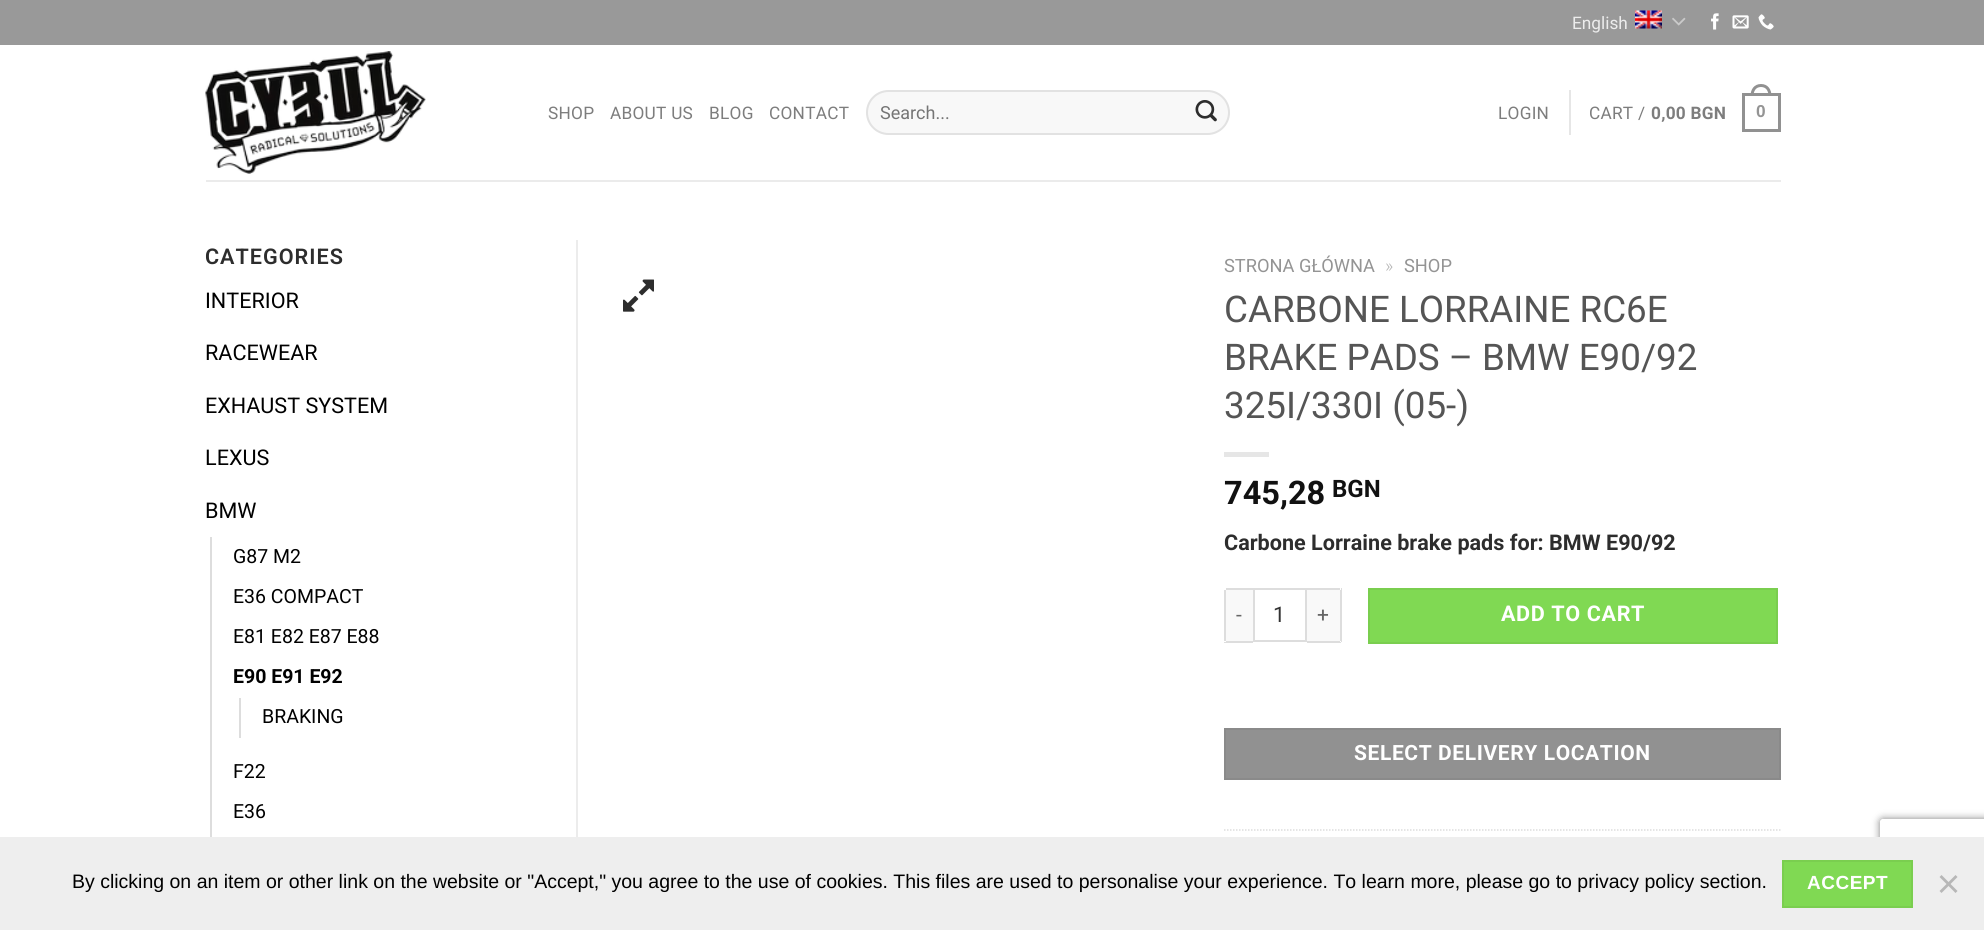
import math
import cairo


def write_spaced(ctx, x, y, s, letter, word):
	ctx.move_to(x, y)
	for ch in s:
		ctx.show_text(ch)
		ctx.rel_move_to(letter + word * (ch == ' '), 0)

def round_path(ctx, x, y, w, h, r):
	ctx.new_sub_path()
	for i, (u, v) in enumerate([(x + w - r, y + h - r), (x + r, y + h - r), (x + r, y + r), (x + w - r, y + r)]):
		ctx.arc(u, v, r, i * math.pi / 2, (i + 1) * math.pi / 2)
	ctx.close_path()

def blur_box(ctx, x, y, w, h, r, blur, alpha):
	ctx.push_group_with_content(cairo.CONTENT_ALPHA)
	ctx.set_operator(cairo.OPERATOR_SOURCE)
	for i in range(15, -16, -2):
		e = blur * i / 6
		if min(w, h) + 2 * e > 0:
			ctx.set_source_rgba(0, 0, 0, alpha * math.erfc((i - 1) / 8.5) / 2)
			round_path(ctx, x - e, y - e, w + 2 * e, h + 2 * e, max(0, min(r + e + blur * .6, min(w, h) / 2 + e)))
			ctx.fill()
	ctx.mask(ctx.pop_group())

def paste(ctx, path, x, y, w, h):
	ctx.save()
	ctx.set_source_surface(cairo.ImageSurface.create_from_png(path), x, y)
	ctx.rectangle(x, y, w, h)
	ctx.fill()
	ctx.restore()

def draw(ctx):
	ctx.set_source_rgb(1, 1, 1)
	ctx.paint()
	ctx.set_source_rgb(0.6, 0.6, 0.6)
	ctx.rectangle(0, 0, 1984, 45)
	ctx.fill()
	ctx.select_font_face('Roboto')
	ctx.set_font_size(17.25)
	ctx.set_source_rgb(0.922, 0.922, 0.922)
	ctx.move_to(1572, 29)
	ctx.show_text('English')
	paste(ctx, 'media/1.png', 1635, 10, 27, 19)
	paste(ctx, 'media/2.png', 1672, 17, 14, 9)
	paste(ctx, 'media/3.png', 1711, 13, 8, 17)
	paste(ctx, 'media/4.png', 1732, 15, 17, 14)
	paste(ctx, 'media/5.png', 1758, 14, 16, 16)
	paste(ctx, 'media/6.png', 205, 51, 221, 123)
	ctx.set_source_rgb(0.49, 0.49, 0.49)
	for x, y, s in [
		(548, 119, 'SHOP'),
		(610, 119, 'ABOUT US'),
		(709, 119, 'BLOG'),
		(769, 119, 'CONTACT'),
	]:
		write_spaced(ctx, x, y, s, 0.25, 0)
	ctx.set_source_rgb(0.969, 0.969, 0.969)
	round_path(ctx, 866, 90, 364, 45, 22.5)
	ctx.fill()
	round_path(ctx, 867, 91, 362, 43, 21.5)
	ctx.set_source_rgba(0, 0, 0, 0.09)
	ctx.stroke()
	ctx.set_font_size(18)
	ctx.set_source_rgb(0.459, 0.459, 0.459)
	ctx.move_to(880, 119)
	ctx.show_text('Search...')
	paste(ctx, 'media/7.png', 1195, 100, 22, 22)
	ctx.set_font_size(17.25)
	ctx.set_source_rgb(0.49, 0.49, 0.49)
	write_spaced(ctx, 1498, 119, 'LOGIN', 0.25, 0)
	ctx.set_source_rgb(0.902, 0.902, 0.902)
	ctx.rectangle(1569, 90, 2, 45)
	ctx.fill()
	ctx.set_source_rgb(0.49, 0.49, 0.49)
	write_spaced(ctx, 1589, 119, 'CART /', 0.25, 0)
	ctx.select_font_face('Roboto', cairo.FONT_SLANT_NORMAL, cairo.FONT_WEIGHT_BOLD)
	write_spaced(ctx, 1651, 119, '0,00 BGN', 0.25, 0)
	ctx.rectangle(1743.5, 94.5, 36, 36)
	ctx.set_source_rgb(0.569, 0.569, 0.569)
	ctx.set_line_width(3)
	ctx.stroke()
	ctx.set_fill_rule(cairo.FILL_RULE_EVEN_ODD)
	ctx.new_path()
	ctx.move_to(1761, 84)
	ctx.curve_to(1768, 84, 1771.5, 89.5, 1771.5, 96)
	ctx.line_to(1750.5, 96)
	ctx.curve_to(1750.5, 89.5, 1754, 84, 1761, 84)
	ctx.close_path()
	ctx.move_to(1761, 87)
	ctx.curve_to(1766.5, 87, 1768.5, 91.5, 1768.5, 96)
	ctx.line_to(1753.5, 96)
	ctx.curve_to(1753.5, 91.5, 1755.5, 87, 1761, 87)
	ctx.close_path()
	ctx.fill()
	ctx.select_font_face('Liberation Sans', cairo.FONT_SLANT_NORMAL, cairo.FONT_WEIGHT_BOLD)
	ctx.set_source_rgb(0.58, 0.58, 0.58)
	write_spaced(ctx, 1756, 117, '0', 0.25, 0)
	ctx.set_source_rgb(0.918, 0.918, 0.918)
	ctx.rectangle(206, 180, 1575, 2)
	ctx.fill()
	ctx.select_font_face('Roboto SemiBold')
	ctx.set_font_size(21.6)
	ctx.set_source_rgb(0.176, 0.176, 0.176)
	write_spaced(ctx, 205, 264, 'CATEGORIES', 1, 0)
	ctx.select_font_face('Roboto')
	ctx.set_source_rgb(0, 0, 0)
	for x, y, s in [
		(205, 308, 'INTERIOR'),
		(205, 360, 'RACEWEAR'),
		(205, 413, 'EXHAUST SYSTEM'),
		(205, 465, 'LEXUS'),
		(205, 518, 'BMW'),
	]:
		ctx.move_to(x, y)
		ctx.show_text(s)
	ctx.set_source_rgb(0.867, 0.867, 0.867)
	ctx.rectangle(210, 537, 2, 300)
	ctx.fill()
	ctx.set_font_size(19.5)
	ctx.set_source_rgb(0, 0, 0)
	for x, y, s in [
		(233, 563, 'G87 M2'),
		(233, 603, 'E36 COMPACT'),
		(233, 643, 'E81 E82 E87 E88'),
	]:
		ctx.move_to(x, y)
		ctx.show_text(s)
	ctx.select_font_face('Roboto', cairo.FONT_SLANT_NORMAL, cairo.FONT_WEIGHT_BOLD)
	ctx.move_to(233, 683)
	ctx.show_text('E90 E91 E92')
	ctx.set_source_rgb(0.867, 0.867, 0.867)
	ctx.rectangle(239, 698, 2, 40)
	ctx.fill()
	ctx.select_font_face('Roboto')
	ctx.set_source_rgb(0, 0, 0)
	for x, y, s in [
		(262, 723, 'BRAKING'),
		(233, 778, 'F22'),
		(233, 818, 'E36'),
	]:
		ctx.move_to(x, y)
		ctx.show_text(s)
	ctx.set_source_rgb(0.925, 0.925, 0.925)
	ctx.rectangle(576, 240, 2, 597)
	ctx.fill()
	paste(ctx, 'media/8.png', 623, 279, 31, 33)
	ctx.set_font_size(18.25)
	ctx.set_source_rgb(0.58, 0.58, 0.58)
	ctx.move_to(1224, 272)
	ctx.show_text('STRONA GŁÓWNA')
	ctx.select_font_face('Roboto Light')
	ctx.set_source_rgb(0.698, 0.698, 0.698)
	ctx.move_to(1385, 272)
	ctx.show_text('»')
	ctx.select_font_face('Roboto')
	ctx.set_source_rgb(0.58, 0.58, 0.58)
	ctx.move_to(1404, 272)
	ctx.show_text('SHOP')
	ctx.set_font_size(36.75)
	ctx.set_source_rgb(0.333, 0.333, 0.333)
	for x, y, s in [
		(1224, 322, 'CARBONE LORRAINE RC6E'),
		(1224, 370, 'BRAKE PADS – BMW E90/92'),
		(1224, 418, '325I/330I (05-)'),
	]:
		ctx.move_to(x, y)
		ctx.show_text(s)
	ctx.set_source_rgb(0.902, 0.902, 0.902)
	ctx.rectangle(1224, 452, 45, 5)
	ctx.fill()
	ctx.select_font_face('Roboto', cairo.FONT_SLANT_NORMAL, cairo.FONT_WEIGHT_BOLD)
	ctx.set_font_size(32.5)
	ctx.set_source_rgb(0.067, 0.067, 0.067)
	ctx.move_to(1224, 504)
	ctx.show_text('745,28')
	ctx.set_font_size(24)
	ctx.move_to(1332, 497)
	ctx.show_text('BGN')
	ctx.set_font_size(21.6)
	ctx.set_source_rgb(0.176, 0.176, 0.176)
	ctx.move_to(1224, 550)
	ctx.show_text('Carbone Lorraine brake pads for: BMW E90/92')
	ctx.set_source_rgb(0.976, 0.976, 0.976)
	ctx.rectangle(1226, 590, 27, 51)
	ctx.fill()
	ctx.set_source_rgb(0.867, 0.867, 0.867)
	ctx.rectangle(1224, 588, 29, 2)
	ctx.rectangle(1224, 641, 29, 2)
	ctx.rectangle(1224, 588, 2, 54)
	ctx.fill()
	ctx.select_font_face('Roboto')
	ctx.set_font_size(21)
	ctx.set_source_rgb(0.4, 0.4, 0.4)
	write_spaced(ctx, 1236, 622, '-', 0.6, 0)
	ctx.rectangle(1254, 589, 52, 52)
	ctx.set_source_rgb(0.867, 0.867, 0.867)
	ctx.set_line_width(2)
	ctx.stroke()
	ctx.set_font_size(21.6)
	ctx.set_source_rgb(0.2, 0.2, 0.2)
	ctx.move_to(1273, 622)
	ctx.show_text('1')
	ctx.set_source_rgb(0.976, 0.976, 0.976)
	ctx.rectangle(1307, 590, 33, 51)
	ctx.fill()
	ctx.set_source_rgb(0.867, 0.867, 0.867)
	ctx.rectangle(1307, 588, 34, 2)
	ctx.rectangle(1340, 588, 2, 54)
	ctx.rectangle(1307, 641, 34, 2)
	ctx.fill()
	ctx.set_font_size(21)
	ctx.set_source_rgb(0.4, 0.4, 0.4)
	write_spaced(ctx, 1317, 622, '+', 0.6, 0)
	ctx.set_source_rgb(0.502, 0.851, 0.325)
	ctx.rectangle(1369, 589, 408, 54)
	ctx.fill_preserve()
	ctx.set_source_rgb(0.478, 0.808, 0.31)
	ctx.stroke()
	ctx.select_font_face('Roboto', cairo.FONT_SLANT_NORMAL, cairo.FONT_WEIGHT_BOLD)
	ctx.set_font_size(21.6)
	ctx.set_source_rgb(1, 1, 1)
	write_spaced(ctx, 1501, 621, 'ADD TO CART', 0.6, 0)
	ctx.set_source_rgb(0.569, 0.569, 0.569)
	ctx.rectangle(1225, 729, 555, 50)
	ctx.fill_preserve()
	ctx.set_source_rgb(0.541, 0.541, 0.541)
	ctx.stroke()
	ctx.set_font_size(21)
	ctx.set_source_rgb(1, 1, 1)
	write_spaced(ctx, 1354, 760, 'SELECT DELIVERY LOCATION', 0.6, 0)
	ctx.new_path()
	ctx.move_to(1224, 830)
	ctx.line_to(1780.5, 830)
	ctx.set_source_rgb(0.867, 0.867, 0.867)
	ctx.set_line_width(1.5)
	ctx.set_dash([1.5, 1.5])
	ctx.stroke()
	ctx.save()
	ctx.new_path()
	ctx.move_to(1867, 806)
	ctx.line_to(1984, 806)
	ctx.line_to(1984, 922)
	ctx.line_to(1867, 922)
	ctx.close_path()
	ctx.move_to(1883, 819)
	ctx.line_to(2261, 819)
	ctx.curve_to(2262.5, 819, 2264, 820.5, 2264, 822)
	ctx.line_to(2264, 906)
	ctx.curve_to(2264, 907.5, 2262.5, 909, 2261, 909)
	ctx.line_to(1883, 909)
	ctx.curve_to(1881.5, 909, 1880, 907.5, 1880, 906)
	ctx.line_to(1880, 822)
	ctx.curve_to(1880, 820.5, 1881.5, 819, 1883, 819)
	ctx.close_path()
	ctx.clip()
	ctx.set_source_rgb(0.502, 0.502, 0.502)
	blur_box(ctx, 1880, 819, 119, 90, 3, 4, 1)
	ctx.restore()
	ctx.set_source_rgb(0.933, 0.933, 0.933)
	ctx.rectangle(0, 837, 1984, 93)
	ctx.fill()
	ctx.select_font_face('Liberation Sans')
	ctx.set_font_size(19.5)
	ctx.set_source_rgb(0, 0, 0)
	ctx.move_to(72, 888)
	ctx.show_text('By clicking on an item or other link on the website or "Accept," you agree to the use of cookies. This files are used to personalise your experience. To learn more, please go to privacy policy section.')
	ctx.set_source_rgb(0.502, 0.851, 0.325)
	ctx.rectangle(1783, 861, 129, 46)
	ctx.fill_preserve()
	ctx.set_source_rgb(0.478, 0.808, 0.31)
	ctx.set_line_width(2)
	ctx.set_dash([])
	ctx.stroke()
	ctx.select_font_face('Liberation Sans', cairo.FONT_SLANT_NORMAL, cairo.FONT_WEIGHT_BOLD)
	ctx.set_font_size(19)
	ctx.set_source_rgb(1, 1, 1)
	write_spaced(ctx, 1807, 889, 'ACCEPT', 0.5, 0)
	ctx.set_source_rgb(0.718, 0.718, 0.718)
	ctx.set_fill_rule(cairo.FILL_RULE_WINDING)
	ctx.new_path()
	ctx.move_to(1955.5, 875)
	ctx.line_to(1957.5, 877)
	ctx.line_to(1941.5, 893)
	ctx.line_to(1939.5, 891)
	ctx.close_path()
	ctx.fill()
	ctx.new_path()
	ctx.move_to(1939.5, 877)
	ctx.line_to(1941.5, 875)
	ctx.line_to(1957.5, 891)
	ctx.line_to(1955.5, 893)
	ctx.close_path()
	ctx.fill()


surface = cairo.ImageSurface(cairo.FORMAT_RGB24, 1984, 930)
ctx = cairo.Context(surface)
options = cairo.FontOptions()
options.set_hint_metrics(cairo.HINT_METRICS_OFF)
options.set_hint_style(cairo.HINT_STYLE_NONE)
ctx.set_font_options(options)
ctx.set_miter_limit(4)
draw(ctx)
surface.write_to_png('image.png')
